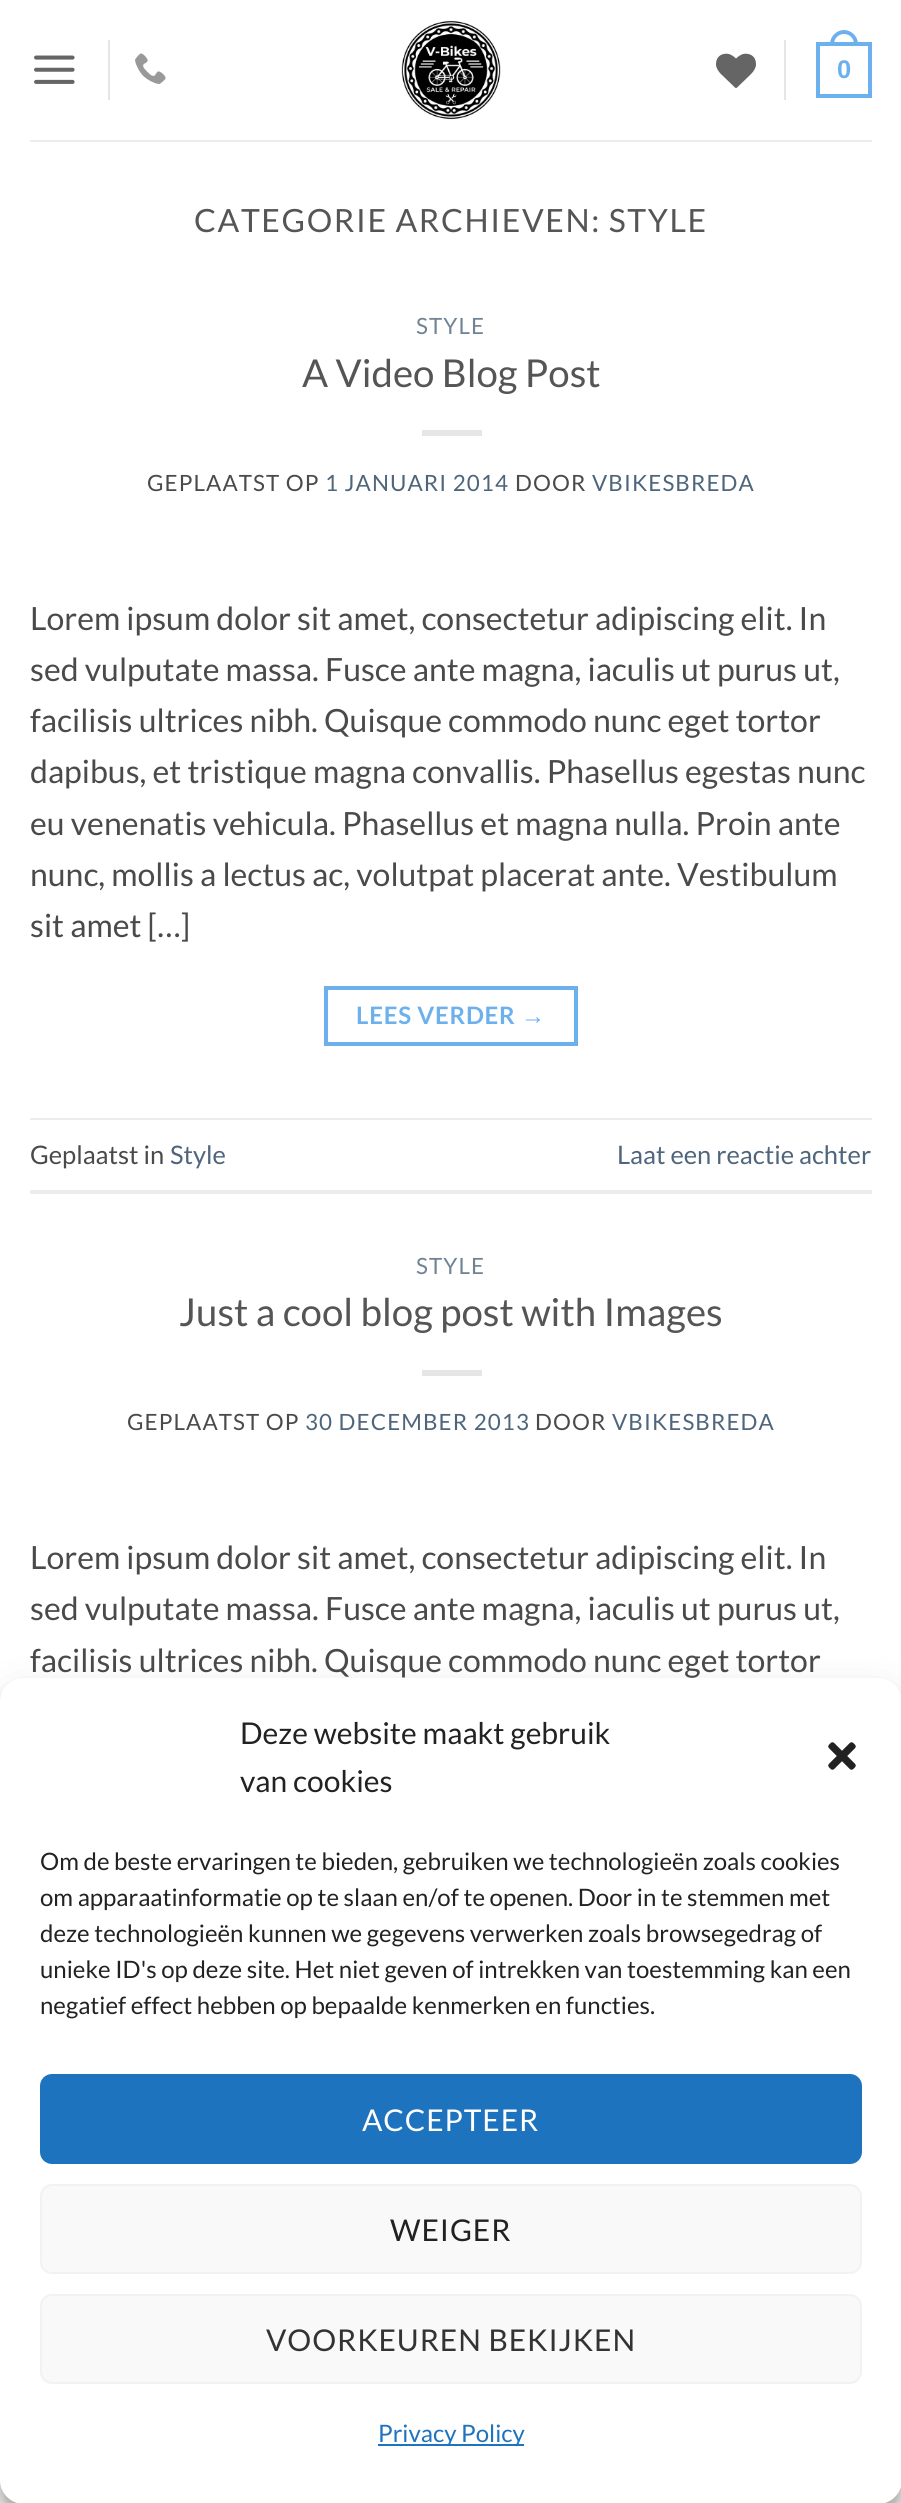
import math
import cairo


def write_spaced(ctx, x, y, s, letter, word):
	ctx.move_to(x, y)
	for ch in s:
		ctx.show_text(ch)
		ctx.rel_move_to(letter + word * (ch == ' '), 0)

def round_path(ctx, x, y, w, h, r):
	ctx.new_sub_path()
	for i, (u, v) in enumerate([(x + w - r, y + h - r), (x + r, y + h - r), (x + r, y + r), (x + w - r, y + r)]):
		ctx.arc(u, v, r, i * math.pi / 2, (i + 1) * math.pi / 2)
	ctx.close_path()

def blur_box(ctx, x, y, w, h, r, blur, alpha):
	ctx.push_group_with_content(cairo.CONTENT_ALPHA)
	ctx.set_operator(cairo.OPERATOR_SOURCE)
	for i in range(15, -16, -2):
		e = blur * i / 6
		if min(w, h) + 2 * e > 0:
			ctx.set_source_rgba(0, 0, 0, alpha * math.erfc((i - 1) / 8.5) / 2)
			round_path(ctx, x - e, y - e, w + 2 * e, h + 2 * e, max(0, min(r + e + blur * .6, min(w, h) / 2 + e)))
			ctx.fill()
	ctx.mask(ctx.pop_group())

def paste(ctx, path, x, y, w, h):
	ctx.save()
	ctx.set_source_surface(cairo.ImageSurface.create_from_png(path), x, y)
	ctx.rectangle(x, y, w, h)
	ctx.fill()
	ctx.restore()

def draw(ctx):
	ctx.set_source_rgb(1, 1, 1)
	ctx.paint()
	paste(ctx, 'media/1.png', 34, 55, 41, 29)
	ctx.set_source_rgb(0.902, 0.902, 0.902)
	ctx.rectangle(108, 40, 2, 60)
	ctx.fill()
	paste(ctx, 'media/2.png', 135, 53, 31, 31)
	paste(ctx, 'media/3.png', 401, 20, 100, 100)
	paste(ctx, 'media/4.png', 716, 53, 40, 35)
	ctx.rectangle(784, 40, 2, 60)
	ctx.fill()
	ctx.rectangle(818, 44, 52, 52)
	ctx.set_source_rgb(0.424, 0.694, 0.929)
	ctx.set_line_width(4)
	ctx.stroke()
	ctx.set_fill_rule(cairo.FILL_RULE_EVEN_ODD)
	ctx.new_path()
	ctx.move_to(844, 30)
	ctx.curve_to(851.5, 30, 858, 36.5, 858, 44)
	ctx.line_to(858, 46)
	ctx.line_to(830, 46)
	ctx.line_to(830, 44)
	ctx.curve_to(830, 36.5, 836.5, 30, 844, 30)
	ctx.close_path()
	ctx.move_to(844, 34)
	ctx.curve_to(849.5, 34, 854, 38.5, 854, 44)
	ctx.line_to(854, 46)
	ctx.line_to(834, 46)
	ctx.line_to(834, 44)
	ctx.curve_to(834, 38.5, 838.5, 34, 844, 34)
	ctx.close_path()
	ctx.fill()
	ctx.select_font_face('Liberation Sans', cairo.FONT_SLANT_NORMAL, cairo.FONT_WEIGHT_BOLD)
	ctx.set_font_size(25.5)
	ctx.move_to(837, 78)
	ctx.show_text('0')
	ctx.set_source_rgb(0.929, 0.929, 0.929)
	ctx.rectangle(30, 140, 842, 2)
	ctx.fill()
	ctx.select_font_face('Lato')
	ctx.set_font_size(32)
	ctx.set_source_rgb(0.333, 0.333, 0.333)
	write_spaced(ctx, 194, 232, 'CATEGORIE ARCHIEVEN: STYLE', 1.6, 0)
	ctx.set_font_size(22.4)
	ctx.set_source_rgb(0.443, 0.518, 0.584)
	write_spaced(ctx, 416, 334, 'STYLE', 1.1, 0)
	ctx.set_font_size(38.4)
	ctx.set_source_rgb(0.333, 0.333, 0.333)
	ctx.move_to(302, 387)
	ctx.show_text('A Video Blog Post')
	ctx.set_source_rgb(0.902, 0.902, 0.902)
	ctx.rectangle(422, 430, 60, 6)
	ctx.fill()
	ctx.set_font_size(22.4)
	ctx.set_source_rgb(0.29, 0.29, 0.29)
	write_spaced(ctx, 147, 491, 'GEPLAATST OP', 1.1, 0)
	ctx.set_source_rgb(0.306, 0.396, 0.482)
	write_spaced(ctx, 325, 491, '1 JANUARI 2014', 1.1, 0)
	ctx.set_source_rgb(0.29, 0.29, 0.29)
	write_spaced(ctx, 515, 491, 'DOOR', 1.1, 0)
	ctx.set_source_rgb(0.306, 0.396, 0.482)
	write_spaced(ctx, 592, 491, 'VBIKESBREDA', 1.1, 0)
	ctx.set_font_size(32)
	ctx.set_source_rgb(0.29, 0.29, 0.29)
	for x, y, s in [
		(30, 630, 'Lorem ipsum dolor sit amet, consectetur adipiscing elit. In'),
		(30, 681, 'sed vulputate massa. Fusce ante magna, iaculis ut purus ut,'),
		(30, 732, 'facilisis ultrices nibh. Quisque commodo nunc eget tortor'),
		(30, 783, 'dapibus, et tristique magna convallis. Phasellus egestas nunc'),
		(30, 835, 'eu venenatis vehicula. Phasellus et magna nulla. Proin ante'),
		(30, 886, 'nunc, mollis a lectus ac, volutpat placerat ante. Vestibulum'),
		(30, 937, 'sit amet […]'),
	]:
		ctx.move_to(x, y)
		ctx.show_text(s)
	ctx.rectangle(326, 988, 250, 56)
	ctx.set_source_rgb(0.424, 0.694, 0.929)
	ctx.stroke()
	ctx.select_font_face('Lato', cairo.FONT_SLANT_NORMAL, cairo.FONT_WEIGHT_BOLD)
	ctx.set_font_size(24)
	write_spaced(ctx, 356, 1024, 'LEES VERDER', 0.75, 0)
	ctx.select_font_face('Liberation Sans', cairo.FONT_SLANT_NORMAL, cairo.FONT_WEIGHT_BOLD)
	write_spaced(ctx, 521, 1024, '→', 0.75, 0)
	ctx.set_source_rgb(0.925, 0.925, 0.925)
	ctx.rectangle(30, 1118, 842, 2)
	ctx.fill()
	ctx.rectangle(30, 1190, 842, 4)
	ctx.fill()
	ctx.select_font_face('Lato')
	ctx.set_font_size(25.5)
	ctx.set_source_rgb(0.29, 0.29, 0.29)
	ctx.move_to(30, 1164)
	ctx.show_text('Geplaatst in')
	ctx.set_source_rgb(0.306, 0.396, 0.482)
	ctx.move_to(170, 1164)
	ctx.show_text('Style')
	ctx.move_to(617, 1164)
	ctx.show_text('Laat een reactie achter')
	ctx.set_font_size(22.4)
	ctx.set_source_rgb(0.443, 0.518, 0.584)
	write_spaced(ctx, 416, 1274, 'STYLE', 1.1, 0)
	ctx.set_font_size(38.4)
	ctx.set_source_rgb(0.333, 0.333, 0.333)
	ctx.move_to(179, 1326)
	ctx.show_text('Just a cool blog post with Images')
	ctx.set_source_rgb(0.902, 0.902, 0.902)
	ctx.rectangle(422, 1370, 60, 6)
	ctx.fill()
	ctx.set_font_size(22.4)
	ctx.set_source_rgb(0.29, 0.29, 0.29)
	write_spaced(ctx, 127, 1430, 'GEPLAATST OP', 1.1, 0)
	ctx.set_source_rgb(0.306, 0.396, 0.482)
	write_spaced(ctx, 305, 1430, '30 DECEMBER 2013', 1.1, 0)
	ctx.set_source_rgb(0.29, 0.29, 0.29)
	write_spaced(ctx, 535, 1430, 'DOOR', 1.1, 0)
	ctx.set_source_rgb(0.306, 0.396, 0.482)
	write_spaced(ctx, 612, 1430, 'VBIKESBREDA', 1.1, 0)
	ctx.set_font_size(32)
	ctx.set_source_rgb(0.29, 0.29, 0.29)
	for x, y, s in [
		(30, 1569, 'Lorem ipsum dolor sit amet, consectetur adipiscing elit. In'),
		(30, 1620, 'sed vulputate massa. Fusce ante magna, iaculis ut purus ut,'),
		(30, 1672, 'facilisis ultrices nibh. Quisque commodo nunc eget tortor'),
	]:
		ctx.move_to(x, y)
		ctx.show_text(s)
	ctx.set_source_rgb(0, 0, 0)
	blur_box(ctx, 0, 1690, 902, 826, 24, 6, 0.23)
	blur_box(ctx, 0, 1698, 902, 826, 24, 20, 0.19)
	ctx.set_source_rgb(1, 1, 1)
	round_path(ctx, 0, 1678, 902, 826, 24)
	ctx.fill()
	ctx.set_font_size(30)
	ctx.set_source_rgb(0.133, 0.133, 0.133)
	ctx.move_to(240, 1744)
	ctx.show_text('Deze website maakt gebruik')
	ctx.move_to(240, 1792)
	ctx.show_text('van cookies')
	paste(ctx, 'media/5.png', 828, 1742, 28, 28)
	ctx.set_font_size(24)
	for x, y, s in [
		(40, 1870, 'Om de beste ervaringen te bieden, gebruiken we technologieën zoals cookies'),
		(40, 1906, 'om apparaatinformatie op te slaan en/of te openen. Door in te stemmen met'),
		(40, 1942, 'deze technologieën kunnen we gegevens verwerken zoals browsegedrag of'),
		(40, 1978, 'unieke ID\'s op deze site. Het niet geven of intrekken van toestemming kan een'),
		(40, 2014, 'negatief effect hebben op bepaalde kenmerken en functies.'),
	]:
		ctx.move_to(x, y)
		ctx.show_text(s)
	ctx.set_source_rgb(0.118, 0.451, 0.745)
	round_path(ctx, 41, 2075, 820, 88, 11)
	ctx.fill_preserve()
	ctx.set_line_width(2)
	ctx.stroke()
	ctx.set_font_size(30)
	ctx.set_source_rgb(1, 1, 1)
	write_spaced(ctx, 362, 2131, 'ACCEPTEER', 0.9, 0)
	ctx.set_source_rgb(0.976, 0.976, 0.976)
	round_path(ctx, 41, 2185, 820, 88, 11)
	ctx.fill_preserve()
	ctx.set_source_rgb(0.949, 0.949, 0.949)
	ctx.stroke()
	ctx.set_source_rgb(0.133, 0.133, 0.133)
	write_spaced(ctx, 390, 2241, 'WEIGER', 0.9, 0)
	ctx.set_source_rgb(0.976, 0.976, 0.976)
	round_path(ctx, 41, 2295, 820, 88, 11)
	ctx.fill_preserve()
	ctx.set_source_rgb(0.949, 0.949, 0.949)
	ctx.stroke()
	ctx.set_source_rgb(0.2, 0.2, 0.2)
	write_spaced(ctx, 266, 2351, 'VOORKEUREN BEKIJKEN', 0.9, 0)
	ctx.set_source_rgb(0.118, 0.451, 0.745)
	ctx.rectangle(378, 2444, 146, 2)
	ctx.fill()
	ctx.set_font_size(24)
	ctx.move_to(378, 2442)
	ctx.show_text('Privacy Policy')


surface = cairo.ImageSurface(cairo.FORMAT_RGB24, 901, 2503)
ctx = cairo.Context(surface)
options = cairo.FontOptions()
options.set_hint_metrics(cairo.HINT_METRICS_OFF)
options.set_hint_style(cairo.HINT_STYLE_NONE)
ctx.set_font_options(options)
ctx.set_miter_limit(4)
draw(ctx)
surface.write_to_png('image.png')
